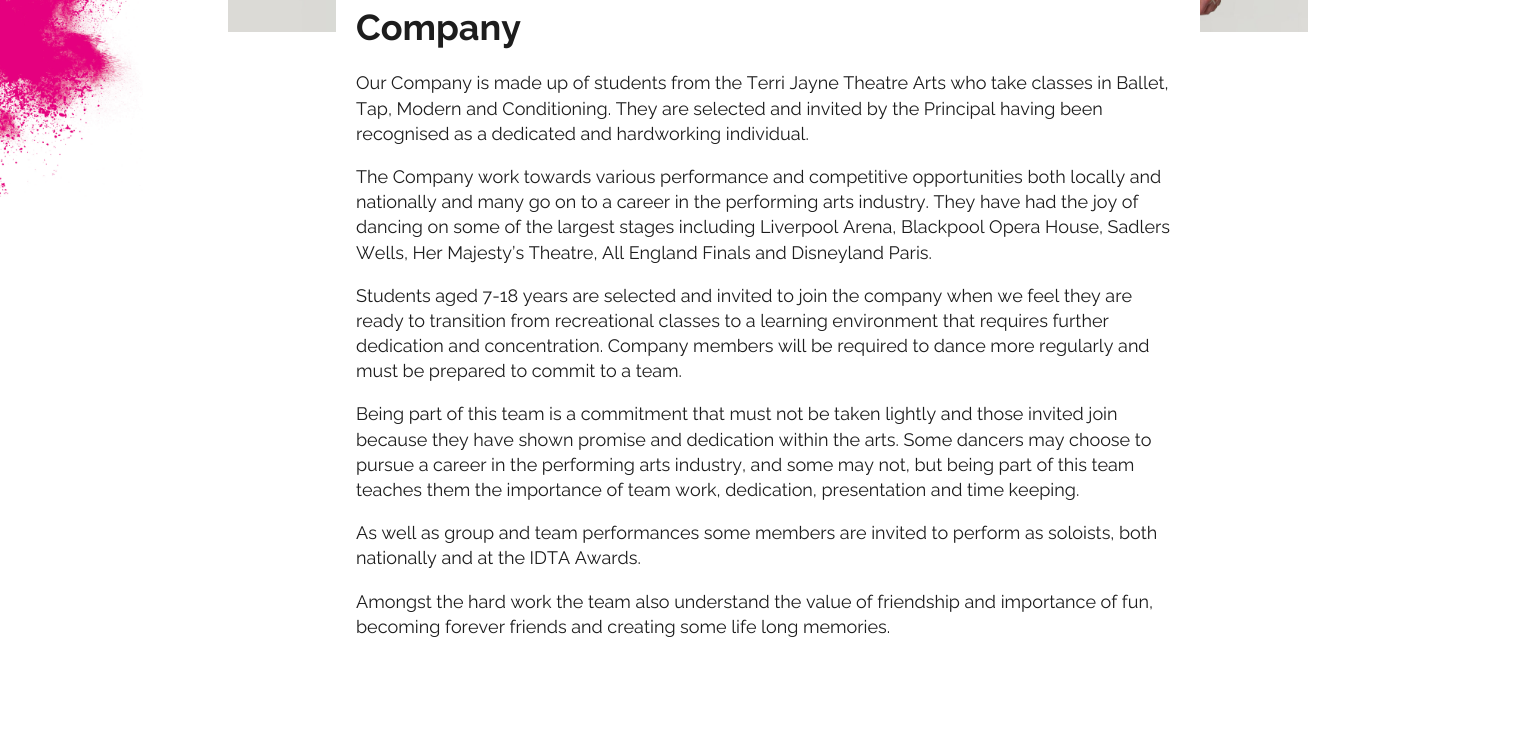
import math
import cairo


def paste(ctx, path, x, y, w, h):
	ctx.save()
	ctx.set_source_surface(cairo.ImageSurface.create_from_png(path), x, y)
	ctx.rectangle(x, y, w, h)
	ctx.fill()
	ctx.restore()

def draw(ctx):
	ctx.set_source_rgb(1, 1, 1)
	ctx.paint()
	paste(ctx, 'media/1.png', 0, 0, 143, 197)
	paste(ctx, 'media/2.png', 228, 0, 1080, 32)
	ctx.set_source_rgb(1, 1, 1)
	ctx.rectangle(336, 0, 864, 32)
	ctx.fill()
	ctx.select_font_face('Raleway', cairo.FONT_SLANT_NORMAL, cairo.FONT_WEIGHT_BOLD)
	ctx.set_font_size(36)
	ctx.set_source_rgb(0.114, 0.114, 0.114)
	ctx.move_to(356, 40)
	ctx.show_text('Company')
	ctx.select_font_face('Raleway')
	ctx.set_font_size(18)
	for x, y, s in [
		(356, 89, 'Our Company is made up of students from the Terri Jayne Theatre Arts who take classes in Ballet,'),
		(356, 115, 'Tap, Modern and Conditioning. They are selected and invited by the Principal having been'),
		(356, 140, 'recognised as a dedicated and hardworking individual.'),
		(356, 183, 'The Company work towards various performance and competitive opportunities both locally and'),
		(356, 208, 'nationally and many go on to a career in the performing arts industry. They have had the joy of'),
		(356, 233, 'dancing on some of the largest stages including Liverpool Arena, Blackpool Opera House, Sadlers'),
		(356, 259, 'Wells, Her Majesty’s Theatre, All England Finals and Disneyland Paris.'),
		(356, 302, 'Students aged 7-18 years are selected and invited to join the company when we feel they are'),
		(356, 327, 'ready to transition from recreational classes to a learning environment that requires further'),
		(356, 352, 'dedication and concentration. Company members will be required to dance more regularly and'),
		(356, 377, 'must be prepared to commit to a team.'),
		(356, 420, 'Being part of this team is a commitment that must not be taken lightly and those invited join'),
		(356, 446, 'because they have shown promise and dedication within the arts. Some dancers may choose to'),
		(356, 471, 'pursue a career in the performing arts industry, and some may not, but being part of this team'),
		(356, 496, 'teaches them the importance of team work, dedication, presentation and time keeping.'),
		(356, 539, 'As well as group and team performances some members are invited to perform as soloists, both'),
		(356, 564, 'nationally and at the IDTA Awards.'),
		(356, 608, 'Amongst the hard work the team also understand the value of friendship and importance of fun,'),
		(356, 633, 'becoming forever friends and creating some life long memories.'),
	]:
		ctx.move_to(x, y)
		ctx.show_text(s)


surface = cairo.ImageSurface(cairo.FORMAT_RGB24, 1536, 729)
ctx = cairo.Context(surface)
options = cairo.FontOptions()
options.set_hint_metrics(cairo.HINT_METRICS_OFF)
options.set_hint_style(cairo.HINT_STYLE_NONE)
ctx.set_font_options(options)
ctx.set_miter_limit(4)
draw(ctx)
surface.write_to_png('image.png')
